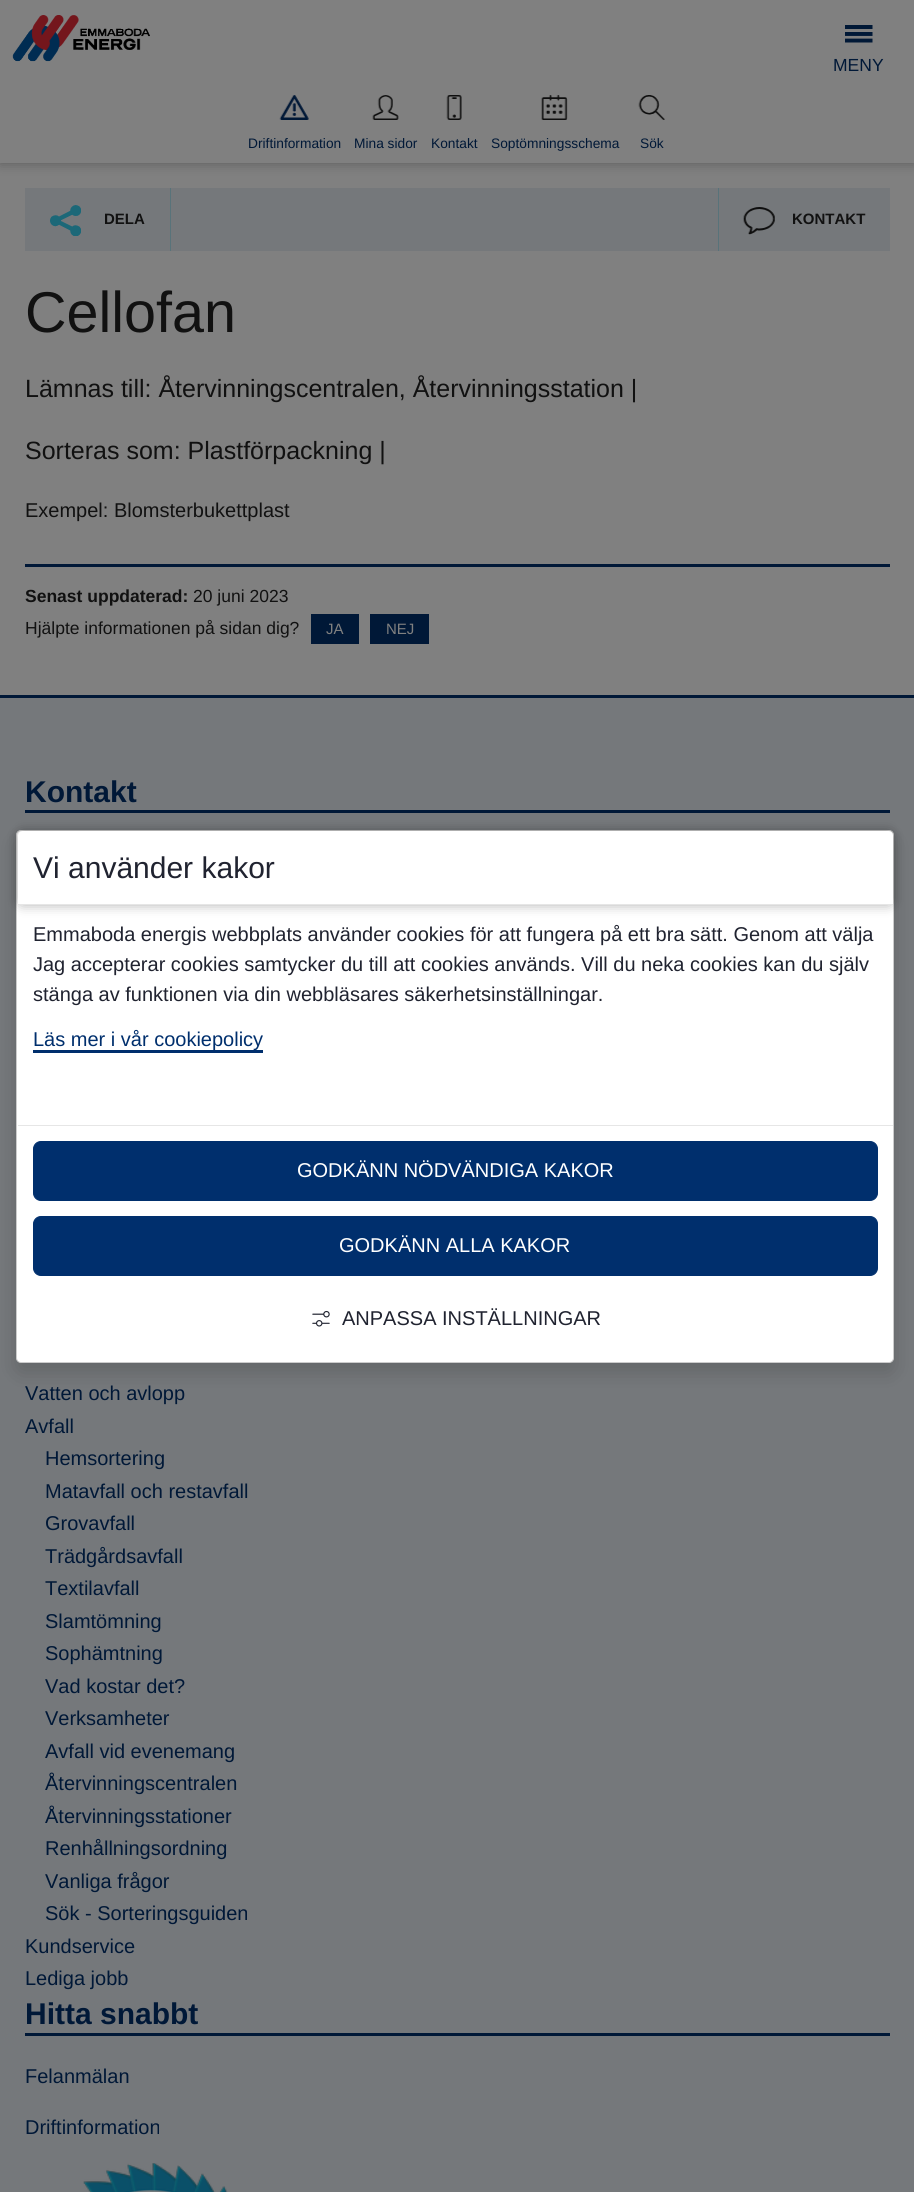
import math
import cairo


def round_path(ctx, x, y, w, h, r):
	ctx.new_sub_path()
	for i, (u, v) in enumerate([(x + w - r, y + h - r), (x + r, y + h - r), (x + r, y + r), (x + w - r, y + r)]):
		ctx.arc(u, v, r, i * math.pi / 2, (i + 1) * math.pi / 2)
	ctx.close_path()

def blur_box(ctx, x, y, w, h, r, blur, alpha):
	ctx.push_group_with_content(cairo.CONTENT_ALPHA)
	ctx.set_operator(cairo.OPERATOR_SOURCE)
	for i in range(15, -16, -2):
		e = blur * i / 6
		if min(w, h) + 2 * e > 0:
			ctx.set_source_rgba(0, 0, 0, alpha * math.erfc((i - 1) / 8.5) / 2)
			round_path(ctx, x - e, y - e, w + 2 * e, h + 2 * e, max(0, min(r + e + blur * .6, min(w, h) / 2 + e)))
			ctx.fill()
	ctx.mask(ctx.pop_group())

def paste(ctx, path, x, y, w, h):
	ctx.save()
	ctx.set_source_surface(cairo.ImageSurface.create_from_png(path), x, y)
	ctx.rectangle(x, y, w, h)
	ctx.fill()
	ctx.restore()

def draw(ctx):
	ctx.set_source_rgb(0.502, 0.502, 0.502)
	ctx.paint()
	ctx.set_source_rgb(0, 0, 0)
	blur_box(ctx, 0, 0, 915, 163, 0, 6, 0.3)
	ctx.set_source_rgb(0.502, 0.502, 0.502)
	ctx.rectangle(0, 0, 914, 163)
	ctx.fill()
	paste(ctx, 'media/1.png', 12, 15, 138, 47)
	paste(ctx, 'media/2.png', 845, 25, 28, 18)
	ctx.select_font_face('Liberation Sans')
	ctx.set_font_size(17.5)
	ctx.set_source_rgb(0, 0.094, 0.216)
	ctx.move_to(833, 71)
	ctx.show_text('MENY')
	paste(ctx, 'media/3.png', 279, 95, 30, 25)
	ctx.set_font_size(13.75)
	ctx.move_to(248, 148)
	ctx.show_text('Driftinformation')
	paste(ctx, 'media/4.png', 372, 95, 27, 25)
	ctx.move_to(354, 148)
	ctx.show_text('Mina sidor')
	paste(ctx, 'media/5.png', 446, 95, 16, 25)
	ctx.move_to(431, 148)
	ctx.show_text('Kontakt')
	paste(ctx, 'media/6.png', 541, 95, 27, 25)
	ctx.move_to(491, 148)
	ctx.show_text('Soptömningsschema')
	paste(ctx, 'media/7.png', 638, 95, 27, 25)
	ctx.move_to(640, 148)
	ctx.show_text('Sök')
	ctx.set_source_rgb(0.459, 0.471, 0.482)
	ctx.rectangle(25, 188, 865, 63)
	ctx.fill()
	ctx.set_source_rgb(0.345, 0.451, 0.478)
	ctx.rectangle(170, 188, 1, 63)
	ctx.fill()
	paste(ctx, 'media/8.png', 50, 205, 31, 31)
	ctx.select_font_face('Liberation Sans', cairo.FONT_SLANT_NORMAL, cairo.FONT_WEIGHT_BOLD)
	ctx.set_font_size(15)
	ctx.set_source_rgb(0.067, 0.067, 0.067)
	ctx.move_to(104, 224)
	ctx.show_text('DELA')
	ctx.set_source_rgb(0.345, 0.451, 0.478)
	ctx.rectangle(718, 188, 1, 63)
	ctx.fill()
	paste(ctx, 'media/9.png', 743, 207, 32, 28)
	ctx.set_source_rgb(0.067, 0.067, 0.067)
	ctx.move_to(792, 224)
	ctx.show_text('KONTAKT')
	ctx.select_font_face('Liberation Sans')
	ctx.set_font_size(57.5)
	ctx.move_to(25, 332)
	ctx.show_text('Cellofan')
	ctx.set_font_size(25)
	ctx.move_to(25, 397)
	ctx.show_text('Lämnas till: Återvinningscentralen, Återvinningsstation |')
	ctx.move_to(25, 459)
	ctx.show_text('Sorteras som: Plastförpackning |')
	ctx.set_font_size(20)
	ctx.move_to(25, 517)
	ctx.show_text('Exempel: Blomsterbukettplast')
	ctx.set_source_rgb(0, 0.094, 0.216)
	ctx.rectangle(25, 564, 865, 3)
	ctx.fill()
	ctx.select_font_face('Liberation Sans', cairo.FONT_SLANT_NORMAL, cairo.FONT_WEIGHT_BOLD)
	ctx.set_font_size(17.5)
	ctx.set_source_rgb(0.067, 0.067, 0.067)
	ctx.move_to(25, 602)
	ctx.show_text('Senast uppdaterad:')
	ctx.select_font_face('Liberation Sans')
	ctx.move_to(193, 602)
	ctx.show_text('20 juni 2023')
	ctx.move_to(25, 634)
	ctx.show_text('Hjälpte informationen på sidan dig?')
	ctx.set_source_rgb(0, 0.094, 0.216)
	ctx.rectangle(311, 614, 48, 30)
	ctx.fill()
	ctx.set_font_size(15)
	ctx.set_source_rgb(0.502, 0.502, 0.502)
	ctx.move_to(326, 634)
	ctx.show_text('JA')
	ctx.set_source_rgb(0, 0.094, 0.216)
	ctx.rectangle(370, 614, 59, 30)
	ctx.fill()
	ctx.set_source_rgb(0.502, 0.502, 0.502)
	ctx.move_to(386, 634)
	ctx.show_text('NEJ')
	ctx.set_source_rgb(0.459, 0.471, 0.482)
	ctx.rectangle(0, 698, 914, 1494)
	ctx.fill()
	ctx.set_source_rgb(0, 0.094, 0.216)
	ctx.rectangle(0, 695, 914, 3)
	ctx.rectangle(25, 810, 865, 3)
	ctx.fill()
	ctx.select_font_face('Liberation Sans', cairo.FONT_SLANT_NORMAL, cairo.FONT_WEIGHT_BOLD)
	ctx.set_font_size(30)
	ctx.move_to(25, 802)
	ctx.show_text('Kontakt')
	ctx.select_font_face('Liberation Sans')
	ctx.set_font_size(20)
	for x, y, s in [
		(25, 1400, 'Vatten och avlopp'),
		(25, 1433, 'Avfall'),
		(45, 1465, 'Hemsortering'),
		(45, 1498, 'Matavfall och restavfall'),
		(45, 1530, 'Grovavfall'),
		(45, 1563, 'Trädgårdsavfall'),
		(45, 1595, 'Textilavfall'),
		(45, 1628, 'Slamtömning'),
		(45, 1660, 'Sophämtning'),
		(45, 1693, 'Vad kostar det?'),
		(45, 1725, 'Verksamheter'),
		(45, 1758, 'Avfall vid evenemang'),
		(45, 1790, 'Återvinningscentralen'),
		(45, 1823, 'Återvinningsstationer'),
		(45, 1855, 'Renhållningsordning'),
		(45, 1888, 'Vanliga frågor'),
		(45, 1920, 'Sök - Sorteringsguiden'),
		(25, 1953, 'Kundservice'),
		(25, 1985, 'Lediga jobb'),
	]:
		ctx.move_to(x, y)
		ctx.show_text(s)
	ctx.rectangle(25, 2033, 865, 3)
	ctx.fill()
	ctx.select_font_face('Liberation Sans', cairo.FONT_SLANT_NORMAL, cairo.FONT_WEIGHT_BOLD)
	ctx.set_font_size(30)
	ctx.move_to(25, 2024)
	ctx.show_text('Hitta snabbt')
	ctx.select_font_face('Liberation Sans')
	ctx.set_font_size(20)
	ctx.move_to(25, 2083)
	ctx.show_text('Felanmälan')
	ctx.move_to(25, 2134)
	ctx.show_text('Driftinformation')
	paste(ctx, 'media/10.png', 83, 2163, 145, 29)
	ctx.set_source_rgb(0, 0, 0)
	blur_box(ctx, 16, 840, 878, 533, 5, 10, 0.15)
	ctx.set_source_rgb(1, 1, 1)
	round_path(ctx, 16.5, 830.5, 877, 532, 4.5)
	ctx.fill_preserve()
	ctx.set_source_rgb(0.8, 0.8, 0.8)
	ctx.set_line_width(1)
	ctx.stroke()
	ctx.set_source_rgb(0, 0, 0)
	blur_box(ctx, 18, 831, 875, 74, 5, 6, 0.3)
	ctx.set_source_rgb(1, 1, 1)
	ctx.new_path()
	ctx.move_to(23, 831)
	ctx.line_to(888, 831)
	ctx.curve_to(891, 831, 893, 833, 893, 836)
	ctx.line_to(893, 905)
	ctx.line_to(18, 905)
	ctx.line_to(18, 836)
	ctx.curve_to(18, 833, 20, 831, 23, 831)
	ctx.close_path()
	ctx.fill()
	ctx.set_source_rgb(0.902, 0.902, 0.902)
	ctx.rectangle(18, 904, 875, 1)
	ctx.fill()
	ctx.set_font_size(30)
	ctx.set_source_rgb(0.125, 0.137, 0.188)
	ctx.move_to(33, 878)
	ctx.show_text('Vi använder kakor')
	ctx.set_font_size(20)
	for x, y, s in [
		(33, 941, 'Emmaboda energis webbplats använder cookies för att fungera på ett bra sätt. Genom att välja'),
		(33, 971, 'Jag accepterar cookies samtycker du till att cookies används. Vill du neka cookies kan du själv'),
		(33, 1001, 'stänga av funktionen via din webbläsares säkerhetsinställningar.'),
	]:
		ctx.move_to(x, y)
		ctx.show_text(s)
	ctx.set_source_rgb(0, 0.184, 0.427)
	ctx.rectangle(33, 1050, 230, 3)
	ctx.fill()
	ctx.move_to(33, 1046)
	ctx.show_text('Läs mer i vår cookiepolicy')
	ctx.set_source_rgb(0.902, 0.902, 0.902)
	ctx.rectangle(18, 1125, 875, 1)
	ctx.fill()
	ctx.set_source_rgb(0, 0.184, 0.427)
	round_path(ctx, 33.5, 1141.5, 844, 59, 7.5)
	ctx.fill_preserve()
	ctx.stroke()
	ctx.set_source_rgb(1, 1, 1)
	ctx.move_to(297, 1177)
	ctx.show_text('GODKÄNN NÖDVÄNDIGA KAKOR')
	ctx.set_source_rgb(0, 0.184, 0.427)
	round_path(ctx, 33.5, 1216.5, 844, 59, 7.5)
	ctx.fill_preserve()
	ctx.stroke()
	ctx.set_source_rgb(1, 1, 1)
	ctx.move_to(339, 1252)
	ctx.show_text('GODKÄNN ALLA KAKOR')
	paste(ctx, 'media/11.png', 312, 1310, 18, 17)
	ctx.set_source_rgb(0.125, 0.137, 0.188)
	ctx.move_to(342, 1325)
	ctx.show_text('ANPASSA INSTÄLLNINGAR')


surface = cairo.ImageSurface(cairo.FORMAT_RGB24, 914, 2192)
ctx = cairo.Context(surface)
options = cairo.FontOptions()
options.set_hint_metrics(cairo.HINT_METRICS_OFF)
options.set_hint_style(cairo.HINT_STYLE_NONE)
ctx.set_font_options(options)
ctx.set_miter_limit(4)
draw(ctx)
surface.write_to_png('image.png')
